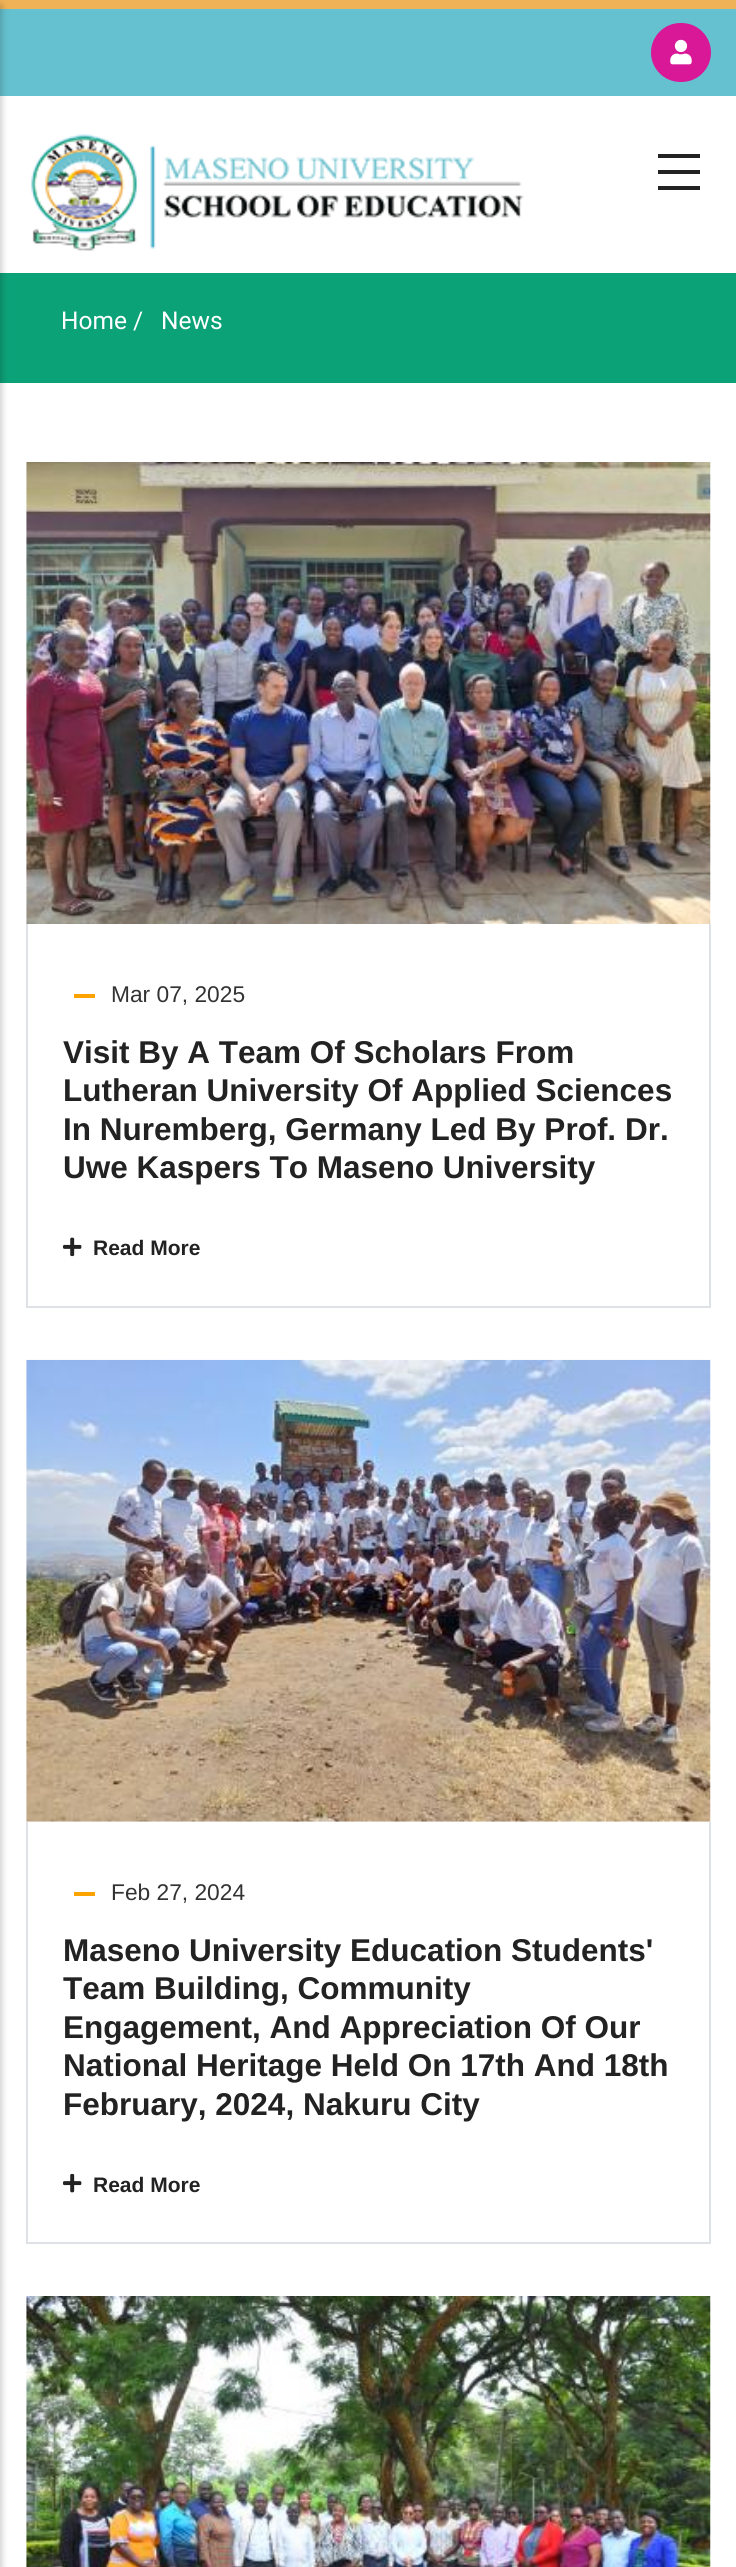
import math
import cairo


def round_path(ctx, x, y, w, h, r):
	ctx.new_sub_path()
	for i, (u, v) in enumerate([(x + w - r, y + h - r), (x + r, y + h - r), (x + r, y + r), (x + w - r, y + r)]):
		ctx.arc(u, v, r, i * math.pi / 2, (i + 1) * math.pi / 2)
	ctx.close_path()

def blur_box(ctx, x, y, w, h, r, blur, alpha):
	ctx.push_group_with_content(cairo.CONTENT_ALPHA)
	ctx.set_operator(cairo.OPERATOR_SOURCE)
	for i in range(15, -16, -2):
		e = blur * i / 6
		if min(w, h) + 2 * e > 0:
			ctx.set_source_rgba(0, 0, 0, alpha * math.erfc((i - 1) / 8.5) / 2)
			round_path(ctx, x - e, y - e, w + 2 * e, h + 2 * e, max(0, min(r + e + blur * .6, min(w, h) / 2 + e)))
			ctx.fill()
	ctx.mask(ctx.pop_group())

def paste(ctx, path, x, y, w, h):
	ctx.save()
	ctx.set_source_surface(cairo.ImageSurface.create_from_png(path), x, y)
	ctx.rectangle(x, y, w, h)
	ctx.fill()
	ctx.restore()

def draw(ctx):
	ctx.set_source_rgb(1, 1, 1)
	ctx.paint()
	ctx.set_source_rgb(0.396, 0.757, 0.812)
	ctx.rectangle(0, 9, 736, 87)
	ctx.fill()
	ctx.set_source_rgb(0.941, 0.698, 0.337)
	ctx.rectangle(0, 0, 736, 9)
	ctx.fill()
	ctx.set_source_rgb(0.851, 0.094, 0.592)
	round_path(ctx, 651, 23, 60, 59, 29.5)
	ctx.fill()
	paste(ctx, 'media/1.png', 670, 39, 22, 26)
	ctx.set_source_rgb(0.047, 0.635, 0.471)
	ctx.rectangle(0, 273, 736, 110)
	ctx.fill()
	ctx.set_source_rgb(0, 0, 0)
	blur_box(ctx, -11, 5, 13, 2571, 0, 3.5, 0.2)
	ctx.set_source_rgb(0.133, 0.133, 0.133)
	ctx.rectangle(658, 154, 42, 4)
	ctx.rectangle(658, 170, 42, 4)
	ctx.rectangle(658, 186, 42, 4)
	ctx.fill()
	paste(ctx, 'media/2.png', 31, 134, 493, 117)
	ctx.select_font_face('Roboto')
	ctx.set_font_size(24.5)
	ctx.set_source_rgb(1, 1, 1)
	ctx.move_to(61, 329)
	ctx.show_text('Home /')
	ctx.move_to(161, 329)
	ctx.show_text('News')
	paste(ctx, 'media/3.png', 26, 462, 685, 462)
	ctx.set_source_rgb(0.871, 0.886, 0.902)
	ctx.rectangle(709, 924, 2, 383)
	ctx.rectangle(26, 1306, 685, 2)
	ctx.rectangle(26, 924, 2, 383)
	ctx.fill()
	ctx.set_source_rgb(0.988, 0.639, 0)
	ctx.rectangle(74, 994, 21, 4)
	ctx.fill()
	ctx.select_font_face('Liberation Sans')
	ctx.set_font_size(22.75)
	ctx.set_source_rgb(0.2, 0.2, 0.2)
	ctx.move_to(111, 1002)
	ctx.show_text('Mar 07, 2025')
	ctx.select_font_face('Liberation Sans', cairo.FONT_SLANT_NORMAL, cairo.FONT_WEIGHT_BOLD)
	ctx.set_font_size(31.5)
	ctx.set_source_rgb(0.133, 0.133, 0.133)
	for x, y, s in [
		(63, 1063, 'Visit By A Team Of Scholars From'),
		(63, 1101, 'Lutheran University Of Applied Sciences'),
		(63, 1140, 'In Nuremberg, Germany Led By Prof. Dr.'),
		(63, 1178, 'Uwe Kaspers To Maseno University'),
	]:
		ctx.move_to(x, y)
		ctx.show_text(s)
	paste(ctx, 'media/4.png', 63, 1237, 19, 20)
	ctx.set_font_size(21)
	ctx.move_to(93, 1255)
	ctx.show_text('Read More')
	paste(ctx, 'media/5.png', 26, 1359, 685, 463)
	ctx.set_source_rgb(0.871, 0.886, 0.902)
	ctx.rectangle(709, 1822, 2, 422)
	ctx.rectangle(26, 2242, 685, 2)
	ctx.rectangle(26, 1822, 2, 422)
	ctx.fill()
	ctx.set_source_rgb(0.988, 0.639, 0)
	ctx.rectangle(74, 1892, 21, 4)
	ctx.fill()
	ctx.select_font_face('Liberation Sans')
	ctx.set_font_size(22.75)
	ctx.set_source_rgb(0.2, 0.2, 0.2)
	ctx.move_to(111, 1900)
	ctx.show_text('Feb 27, 2024')
	ctx.select_font_face('Liberation Sans', cairo.FONT_SLANT_NORMAL, cairo.FONT_WEIGHT_BOLD)
	ctx.set_font_size(31.5)
	ctx.set_source_rgb(0.133, 0.133, 0.133)
	for x, y, s in [
		(63, 1961, 'Maseno University Education Students\''),
		(63, 1999, 'Team Building, Community'),
		(63, 2038, 'Engagement, And Appreciation Of Our'),
		(63, 2076, 'National Heritage Held On 17th And 18th'),
		(63, 2115, 'February, 2024, Nakuru City'),
	]:
		ctx.move_to(x, y)
		ctx.show_text(s)
	paste(ctx, 'media/6.png', 63, 2173, 19, 20)
	ctx.set_font_size(21)
	ctx.move_to(93, 2192)
	ctx.show_text('Read More')
	paste(ctx, 'media/7.png', 26, 2296, 685, 271)


surface = cairo.ImageSurface(cairo.FORMAT_RGB24, 736, 2567)
ctx = cairo.Context(surface)
options = cairo.FontOptions()
options.set_hint_metrics(cairo.HINT_METRICS_OFF)
options.set_hint_style(cairo.HINT_STYLE_NONE)
ctx.set_font_options(options)
ctx.set_miter_limit(4)
draw(ctx)
surface.write_to_png('image.png')
